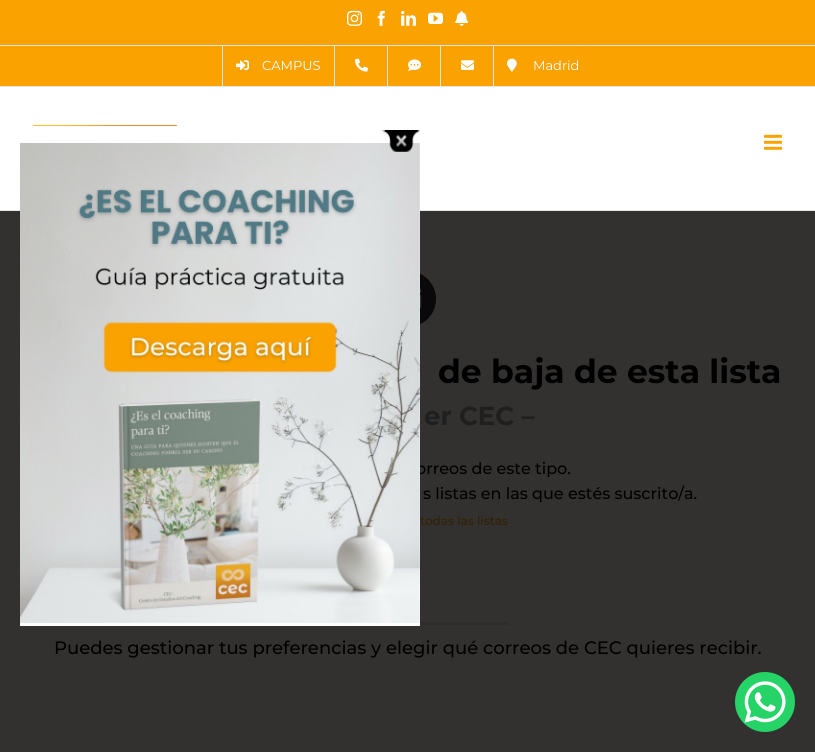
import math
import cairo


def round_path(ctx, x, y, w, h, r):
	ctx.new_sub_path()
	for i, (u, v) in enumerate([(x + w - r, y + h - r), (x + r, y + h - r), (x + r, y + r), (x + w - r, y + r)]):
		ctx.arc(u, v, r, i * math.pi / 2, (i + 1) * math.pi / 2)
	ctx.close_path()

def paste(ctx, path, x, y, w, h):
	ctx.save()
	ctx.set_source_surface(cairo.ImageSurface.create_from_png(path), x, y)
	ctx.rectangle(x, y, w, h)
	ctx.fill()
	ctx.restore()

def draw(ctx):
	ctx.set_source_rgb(0.196, 0.192, 0.188)
	ctx.paint()
	ctx.set_source_rgb(0.976, 0.635, 0)
	ctx.rectangle(0, 0, 815, 86)
	ctx.fill()
	ctx.set_source_rgb(0.898, 0.898, 0.898)
	ctx.rectangle(0, 86, 815, 1)
	ctx.rectangle(0, 45, 815, 1)
	ctx.fill()
	paste(ctx, 'media/1.png', 347, 10, 15, 16)
	paste(ctx, 'media/2.png', 377, 10, 8, 16)
	paste(ctx, 'media/3.png', 401, 11, 15, 15)
	paste(ctx, 'media/4.png', 428, 12, 15, 12)
	paste(ctx, 'media/5.png', 455, 10, 14, 16)
	ctx.rectangle(222, 46, 1, 40)
	ctx.fill()
	paste(ctx, 'media/6.png', 236, 60, 13, 11)
	ctx.select_font_face('Montserrat')
	ctx.set_font_size(13)
	ctx.set_source_rgb(1, 1, 1)
	ctx.move_to(262, 70)
	ctx.show_text('CAMPUS')
	ctx.set_source_rgb(0.898, 0.898, 0.898)
	ctx.rectangle(334, 46, 1, 40)
	ctx.fill()
	paste(ctx, 'media/7.png', 355, 58, 13, 14)
	ctx.rectangle(387, 46, 1, 40)
	ctx.fill()
	paste(ctx, 'media/8.png', 408, 59, 13, 12)
	ctx.rectangle(440, 46, 1, 40)
	ctx.fill()
	paste(ctx, 'media/9.png', 461, 60, 13, 10)
	ctx.rectangle(493, 46, 1, 40)
	ctx.fill()
	paste(ctx, 'media/10.png', 507, 58, 10, 14)
	ctx.set_source_rgb(1, 1, 1)
	ctx.move_to(533, 70)
	ctx.show_text('Madrid')
	ctx.rectangle(0, 87, 815, 123)
	ctx.fill()
	ctx.set_source_rgb(0.898, 0.898, 0.898)
	ctx.rectangle(0, 210, 815, 1)
	ctx.fill()
	paste(ctx, 'media/11.png', 32, 124, 146, 2)
	paste(ctx, 'media/12.png', 764, 134, 18, 16)
	ctx.set_source_rgb(0.039, 0.039, 0.039)
	round_path(ctx, 379.5, 271.5, 56, 55, 27.5)
	ctx.fill_preserve()
	ctx.set_line_width(1)
	ctx.stroke()
	paste(ctx, 'media/13.png', 420, 288, 2, 21)
	ctx.select_font_face('Montserrat', cairo.FONT_SLANT_NORMAL, cairo.FONT_WEIGHT_BOLD)
	ctx.set_font_size(33)
	ctx.set_source_rgb(0, 0, 0)
	ctx.move_to(438, 383)
	ctx.show_text('de baja de esta lista')
	ctx.set_font_size(26)
	ctx.set_source_rgb(0.122, 0.122, 0.122)
	ctx.move_to(424, 425)
	ctx.show_text('er CEC –')
	ctx.select_font_face('Montserrat Medium')
	ctx.set_font_size(16)
	ctx.set_source_rgb(0, 0, 0)
	ctx.move_to(416, 474)
	ctx.show_text('orreos de este tipo.')
	ctx.move_to(423, 499)
	ctx.show_text('s listas en las que estés suscrito/a.')
	ctx.set_font_size(12)
	ctx.set_source_rgb(0.196, 0.125, 0)
	ctx.move_to(420, 525)
	ctx.show_text('todas las listas')
	ctx.set_source_rgb(0.176, 0.173, 0.173)
	ctx.rectangle(420, 622, 89, 3)
	ctx.fill()
	ctx.set_font_size(18)
	ctx.set_source_rgb(0, 0, 0)
	ctx.move_to(54, 654)
	ctx.show_text('Puedes gestionar tus preferencias y elegir qué correos de CEC quieres recibir.')
	ctx.set_source_rgb(1, 1, 1)
	ctx.rectangle(20, 210, 400, 416)
	ctx.fill()
	paste(ctx, 'media/15.png', 20, 143, 400, 480)
	paste(ctx, 'media/14.png', 382, 130, 38, 22)
	ctx.set_source_rgb(0.145, 0.827, 0.4)
	ctx.arc(765, 702, 30, 0, 2 * math.pi)
	ctx.fill()
	paste(ctx, 'media/16.png', 744, 681, 42, 42)


surface = cairo.ImageSurface(cairo.FORMAT_RGB24, 815, 752)
ctx = cairo.Context(surface)
options = cairo.FontOptions()
options.set_hint_metrics(cairo.HINT_METRICS_OFF)
options.set_hint_style(cairo.HINT_STYLE_NONE)
ctx.set_font_options(options)
ctx.set_miter_limit(4)
draw(ctx)
surface.write_to_png('image.png')
